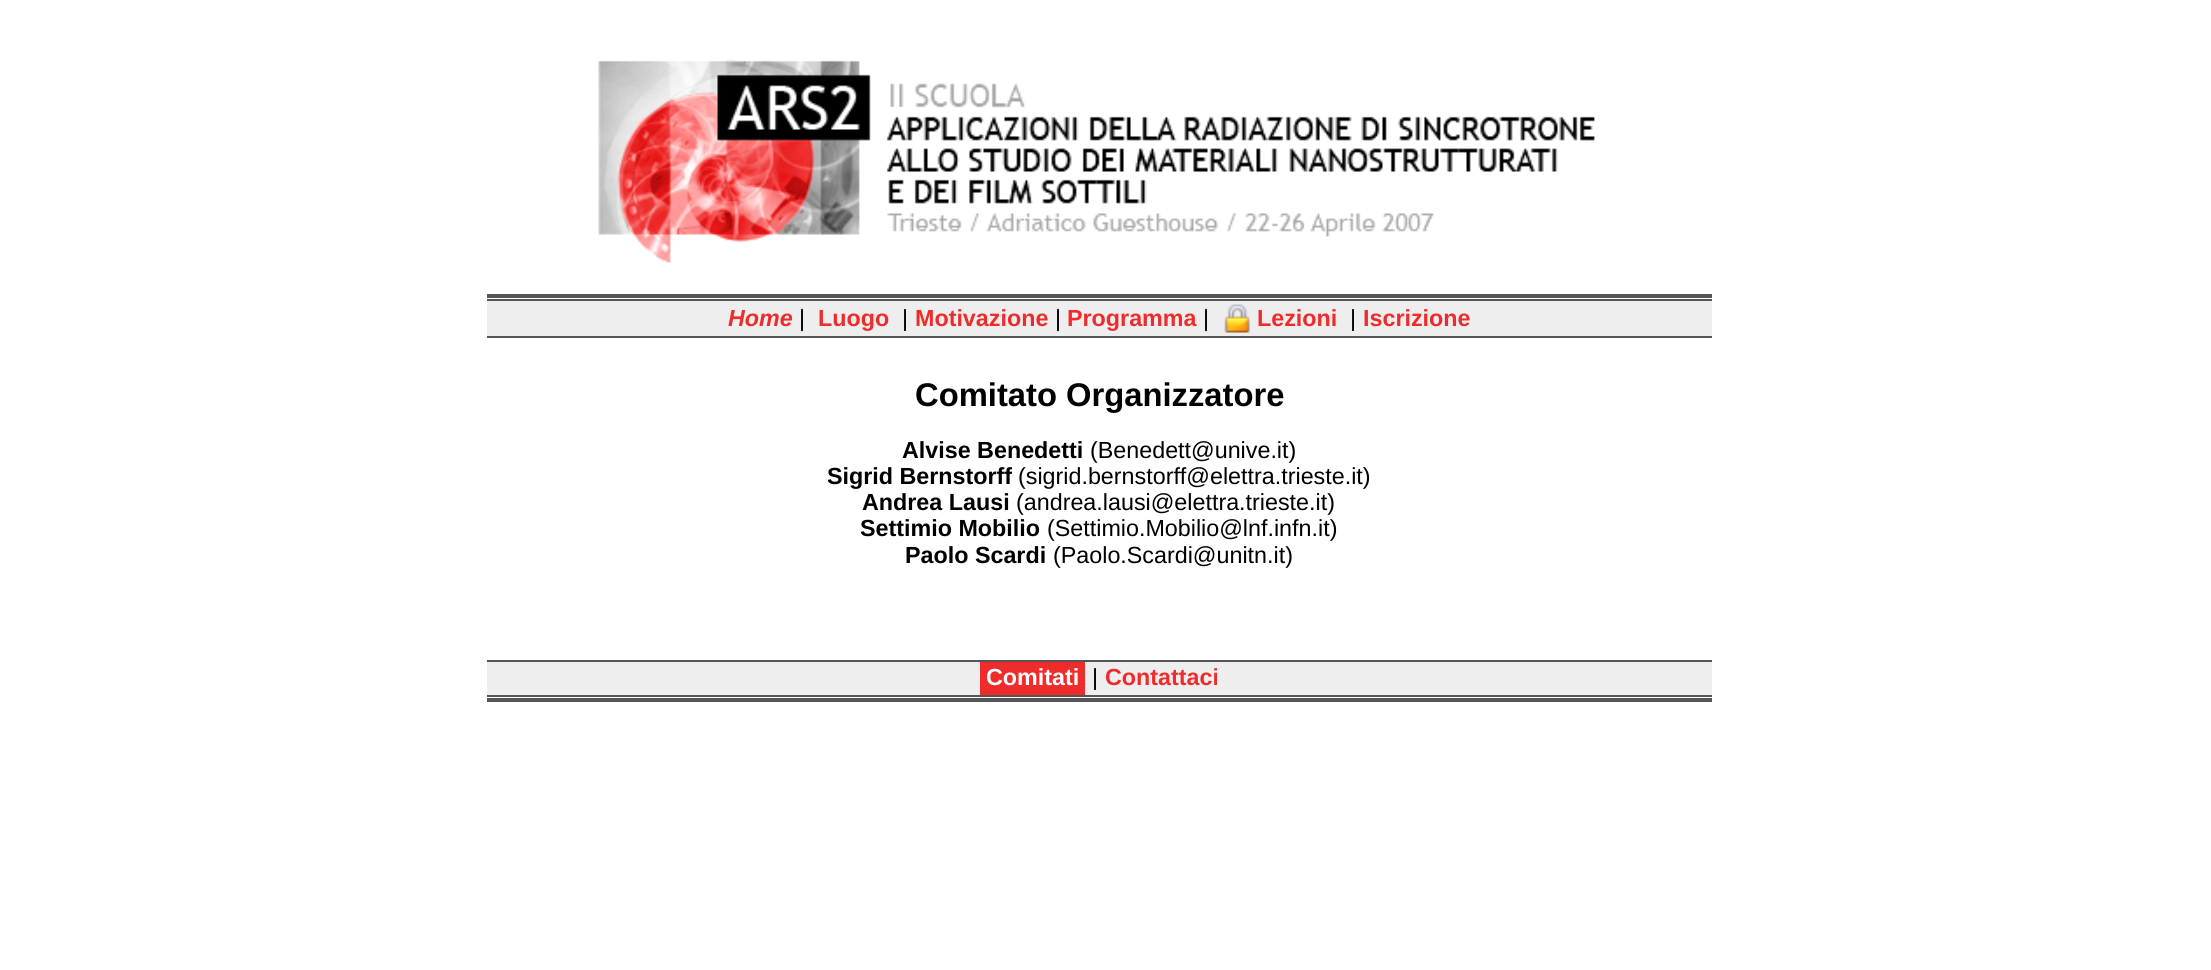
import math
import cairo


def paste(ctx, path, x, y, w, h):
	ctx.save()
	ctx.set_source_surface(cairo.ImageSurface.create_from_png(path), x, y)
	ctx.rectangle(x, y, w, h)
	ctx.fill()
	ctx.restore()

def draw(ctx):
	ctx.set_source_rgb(1, 1, 1)
	ctx.paint()
	paste(ctx, 'media/1.png', 598, 59, 997, 204)
	ctx.set_source_rgb(0.333, 0.333, 0.333)
	ctx.rectangle(487, 294, 1225, 4)
	ctx.rectangle(487, 299, 1225, 2)
	ctx.fill()
	ctx.set_source_rgb(0.933, 0.933, 0.933)
	ctx.rectangle(487, 301, 1225, 35)
	ctx.fill()
	ctx.select_font_face('Liberation Sans', cairo.FONT_SLANT_ITALIC, cairo.FONT_WEIGHT_BOLD)
	ctx.set_font_size(23.3)
	ctx.set_source_rgb(0.933, 0.173, 0.173)
	ctx.move_to(728, 326)
	ctx.show_text('Home')
	ctx.select_font_face('Liberation Sans')
	ctx.set_source_rgb(0, 0, 0)
	ctx.move_to(799, 326)
	ctx.show_text('|')
	ctx.select_font_face('Liberation Sans', cairo.FONT_SLANT_NORMAL, cairo.FONT_WEIGHT_BOLD)
	ctx.set_source_rgb(0.933, 0.173, 0.173)
	ctx.move_to(818, 326)
	ctx.show_text('Luogo')
	ctx.select_font_face('Liberation Sans')
	ctx.set_source_rgb(0, 0, 0)
	ctx.move_to(902, 326)
	ctx.show_text('|')
	ctx.select_font_face('Liberation Sans', cairo.FONT_SLANT_NORMAL, cairo.FONT_WEIGHT_BOLD)
	ctx.set_source_rgb(0.933, 0.173, 0.173)
	ctx.move_to(915, 326)
	ctx.show_text('Motivazione')
	ctx.select_font_face('Liberation Sans')
	ctx.set_source_rgb(0, 0, 0)
	ctx.move_to(1055, 326)
	ctx.show_text('|')
	ctx.select_font_face('Liberation Sans', cairo.FONT_SLANT_NORMAL, cairo.FONT_WEIGHT_BOLD)
	ctx.set_source_rgb(0.933, 0.173, 0.173)
	ctx.move_to(1067, 326)
	ctx.show_text('Programma')
	ctx.select_font_face('Liberation Sans')
	ctx.set_source_rgb(0, 0, 0)
	ctx.move_to(1203, 326)
	ctx.show_text('|')
	paste(ctx, 'media/2.png', 1224, 304, 26, 29)
	ctx.select_font_face('Liberation Sans', cairo.FONT_SLANT_NORMAL, cairo.FONT_WEIGHT_BOLD)
	ctx.set_source_rgb(0.933, 0.173, 0.173)
	ctx.move_to(1257, 326)
	ctx.show_text('Lezioni')
	ctx.select_font_face('Liberation Sans')
	ctx.set_source_rgb(0, 0, 0)
	ctx.move_to(1350, 326)
	ctx.show_text('|')
	ctx.select_font_face('Liberation Sans', cairo.FONT_SLANT_NORMAL, cairo.FONT_WEIGHT_BOLD)
	ctx.set_source_rgb(0.933, 0.173, 0.173)
	ctx.move_to(1363, 326)
	ctx.show_text('Iscrizione')
	ctx.set_source_rgb(0.333, 0.333, 0.333)
	ctx.rectangle(487, 336, 1225, 2)
	ctx.fill()
	ctx.set_font_size(32.75)
	ctx.set_source_rgb(0, 0, 0)
	ctx.move_to(915, 406)
	ctx.show_text('Comitato Organizzatore')
	ctx.set_font_size(23.3)
	ctx.move_to(902, 458)
	ctx.show_text('Alvise Benedetti')
	ctx.select_font_face('Liberation Sans')
	ctx.move_to(1090, 458)
	ctx.show_text('(Benedett@unive.it)')
	ctx.select_font_face('Liberation Sans', cairo.FONT_SLANT_NORMAL, cairo.FONT_WEIGHT_BOLD)
	ctx.move_to(827, 484)
	ctx.show_text('Sigrid Bernstorff')
	ctx.select_font_face('Liberation Sans')
	ctx.move_to(1018, 484)
	ctx.show_text('(sigrid.bernstorff@elettra.trieste.it)')
	ctx.select_font_face('Liberation Sans', cairo.FONT_SLANT_NORMAL, cairo.FONT_WEIGHT_BOLD)
	ctx.move_to(862, 510)
	ctx.show_text('Andrea Lausi')
	ctx.select_font_face('Liberation Sans')
	ctx.move_to(1016, 510)
	ctx.show_text('(andrea.lausi@elettra.trieste.it)')
	ctx.select_font_face('Liberation Sans', cairo.FONT_SLANT_NORMAL, cairo.FONT_WEIGHT_BOLD)
	ctx.move_to(860, 536)
	ctx.show_text('Settimio Mobilio')
	ctx.select_font_face('Liberation Sans')
	ctx.move_to(1047, 536)
	ctx.show_text('(Settimio.Mobilio@lnf.infn.it)')
	ctx.select_font_face('Liberation Sans', cairo.FONT_SLANT_NORMAL, cairo.FONT_WEIGHT_BOLD)
	ctx.move_to(905, 563)
	ctx.show_text('Paolo Scardi')
	ctx.select_font_face('Liberation Sans')
	ctx.move_to(1053, 563)
	ctx.show_text('(Paolo.Scardi@unitn.it)')
	ctx.set_source_rgb(0.333, 0.333, 0.333)
	ctx.rectangle(487, 660, 1225, 2)
	ctx.fill()
	ctx.set_source_rgb(0.933, 0.933, 0.933)
	ctx.rectangle(487, 662, 1225, 33)
	ctx.fill()
	ctx.set_source_rgb(0.933, 0.173, 0.173)
	ctx.rectangle(980, 662, 105, 33)
	ctx.fill()
	ctx.select_font_face('Liberation Sans', cairo.FONT_SLANT_NORMAL, cairo.FONT_WEIGHT_BOLD)
	ctx.set_source_rgb(1, 1, 1)
	ctx.move_to(986, 685)
	ctx.show_text('Comitati')
	ctx.select_font_face('Liberation Sans')
	ctx.set_source_rgb(0, 0, 0)
	ctx.move_to(1092, 685)
	ctx.show_text('|')
	ctx.select_font_face('Liberation Sans', cairo.FONT_SLANT_NORMAL, cairo.FONT_WEIGHT_BOLD)
	ctx.set_source_rgb(0.933, 0.173, 0.173)
	ctx.move_to(1105, 685)
	ctx.show_text('Contattaci')
	ctx.set_source_rgb(0.333, 0.333, 0.333)
	ctx.rectangle(487, 695, 1225, 2)
	ctx.fill()
	ctx.rectangle(487, 698, 1225, 4)
	ctx.fill()


surface = cairo.ImageSurface(cairo.FORMAT_RGB24, 2211, 970)
ctx = cairo.Context(surface)
options = cairo.FontOptions()
options.set_hint_metrics(cairo.HINT_METRICS_OFF)
options.set_hint_style(cairo.HINT_STYLE_NONE)
ctx.set_font_options(options)
ctx.set_miter_limit(4)
draw(ctx)
surface.write_to_png('image.png')
